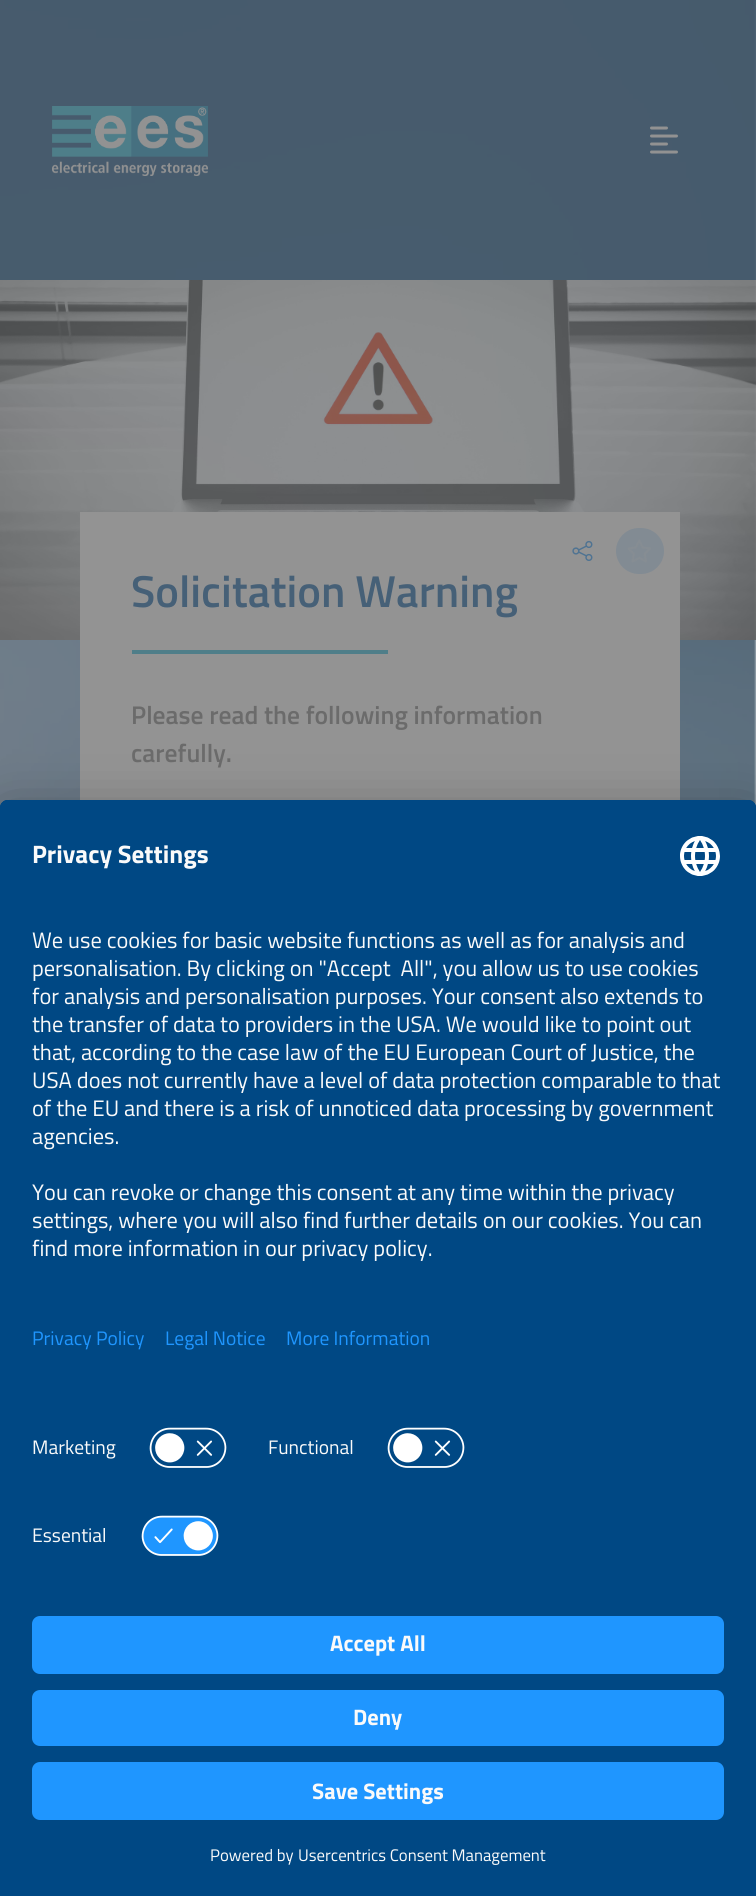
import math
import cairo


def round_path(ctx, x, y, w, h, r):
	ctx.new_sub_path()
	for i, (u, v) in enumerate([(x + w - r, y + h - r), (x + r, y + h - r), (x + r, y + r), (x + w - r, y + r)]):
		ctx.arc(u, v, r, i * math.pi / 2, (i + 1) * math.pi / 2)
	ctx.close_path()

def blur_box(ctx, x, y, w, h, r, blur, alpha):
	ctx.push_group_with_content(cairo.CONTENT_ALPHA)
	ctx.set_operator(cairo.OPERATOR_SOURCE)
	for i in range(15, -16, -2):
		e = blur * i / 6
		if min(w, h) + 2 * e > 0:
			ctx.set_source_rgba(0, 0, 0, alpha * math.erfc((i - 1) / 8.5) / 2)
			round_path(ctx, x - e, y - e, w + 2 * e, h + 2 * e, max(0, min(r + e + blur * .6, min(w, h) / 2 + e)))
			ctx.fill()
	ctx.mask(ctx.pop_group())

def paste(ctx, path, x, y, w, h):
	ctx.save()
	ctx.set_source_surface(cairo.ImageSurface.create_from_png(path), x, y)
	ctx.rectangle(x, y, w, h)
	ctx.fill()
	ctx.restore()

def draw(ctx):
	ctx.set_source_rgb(1, 1, 1)
	ctx.paint()
	paste(ctx, 'media/1.png', 0, 0, 756, 808)
	ctx.set_source_rgba(0.275, 0.353, 0.424, 0.88)
	ctx.rectangle(0, 0, 756, 280)
	ctx.fill()
	paste(ctx, 'media/2.png', 52, 106, 156, 70)
	paste(ctx, 'media/3.png', 650, 126, 28, 28)
	paste(ctx, 'media/4.png', 0, 280, 756, 360)
	ctx.set_source_rgb(0.576, 0.576, 0.576)
	ctx.rectangle(80, 512, 600, 288)
	ctx.fill()
	paste(ctx, 'media/5.png', 572, 540, 21, 21)
	ctx.set_source_rgb(0.51, 0.545, 0.576)
	round_path(ctx, 616, 528, 48, 46, 23)
	ctx.fill()
	paste(ctx, 'media/6.png', 627, 539, 24, 24)
	ctx.select_font_face('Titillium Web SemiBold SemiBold')
	ctx.set_font_size(44.75)
	ctx.set_source_rgb(0.275, 0.376, 0.467)
	ctx.move_to(131, 607)
	ctx.show_text('Solicitation Warning')
	ctx.set_source_rgb(0.31, 0.494, 0.537)
	ctx.rectangle(132, 650, 256, 4)
	ctx.fill()
	ctx.set_font_size(25.6)
	ctx.set_source_rgb(0.42, 0.42, 0.42)
	ctx.move_to(131, 724)
	ctx.show_text('Please read the following information')
	ctx.move_to(131, 762)
	ctx.show_text('carefully.')
	ctx.set_source_rgb(0, 0, 0)
	blur_box(ctx, 0, 840, 756, 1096, 8, 28, 0.3)
	blur_box(ctx, 0, 810, 756, 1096, 8, 26, 0.22)
	ctx.set_source_rgb(0, 0.282, 0.518)
	ctx.new_path()
	ctx.move_to(8, 800)
	ctx.line_to(748, 800)
	ctx.curve_to(752.5, 800, 756, 803.5, 756, 808)
	ctx.line_to(756, 1896)
	ctx.line_to(0, 1896)
	ctx.line_to(0, 808)
	ctx.curve_to(0, 803.5, 3.5, 800, 8, 800)
	ctx.close_path()
	ctx.fill()
	ctx.new_path()
	ctx.move_to(8, 800)
	ctx.line_to(748, 800)
	ctx.curve_to(752.5, 800, 756, 803.5, 756, 808)
	ctx.line_to(756, 1592)
	ctx.line_to(0, 1592)
	ctx.line_to(0, 808)
	ctx.curve_to(0, 803.5, 3.5, 800, 8, 800)
	ctx.close_path()
	ctx.fill()
	ctx.new_path()
	ctx.move_to(8, 800)
	ctx.line_to(748, 800)
	ctx.curve_to(752.5, 800, 756, 803.5, 756, 808)
	ctx.line_to(756, 1416)
	ctx.line_to(0, 1416)
	ctx.line_to(0, 808)
	ctx.curve_to(0, 803.5, 3.5, 800, 8, 800)
	ctx.close_path()
	ctx.fill()
	ctx.select_font_face('Titillium Web', cairo.FONT_SLANT_NORMAL, cairo.FONT_WEIGHT_BOLD)
	ctx.set_font_size(25.25)
	ctx.set_source_rgb(0.98, 0.98, 0.98)
	ctx.move_to(32, 863)
	ctx.show_text('Privacy Settings')
	paste(ctx, 'media/7.png', 680, 836, 40, 40)
	ctx.select_font_face('Titillium Web')
	ctx.set_font_size(22.4)
	for x, y, s in [
		(32, 948, 'We use cookies for basic website functions as well as for analysis and'),
		(32, 976, 'personalisation. By clicking on "Accept  All", you allow us to use cookies'),
		(32, 1004, 'for analysis and personalisation purposes. Your consent also extends to'),
		(32, 1032, 'the transfer of data to providers in the USA. We would like to point out'),
		(32, 1060, 'that, according to the case law of the EU European Court of Justice, the'),
		(32, 1088, 'USA does not currently have a level of data protection comparable to that'),
		(32, 1116, 'of the EU and there is a risk of unnoticed data processing by government'),
		(32, 1144, 'agencies.'),
		(32, 1200, 'You can revoke or change this consent at any time within the privacy'),
		(32, 1228, 'settings, where you will also find further details on our cookies. You can'),
		(32, 1256, 'find more information in our privacy policy.'),
	]:
		ctx.move_to(x, y)
		ctx.show_text(s)
	ctx.set_font_size(19.5)
	ctx.set_source_rgb(0.122, 0.588, 1)
	for x, y, s in [
		(32, 1345, 'Privacy Policy'),
		(165, 1345, 'Legal Notice'),
		(286, 1345, 'More Information'),
	]:
		ctx.move_to(x, y)
		ctx.show_text(s)
	ctx.set_source_rgb(0.98, 0.98, 0.98)
	ctx.move_to(32, 1454)
	ctx.show_text('Marketing')
	paste(ctx, 'media/8.png', 149, 1427, 78, 41)
	ctx.move_to(268, 1454)
	ctx.show_text('Functional')
	paste(ctx, 'media/8.png', 387, 1427, 78, 41)
	ctx.move_to(32, 1542)
	ctx.show_text('Essential')
	paste(ctx, 'media/9.png', 141, 1515, 78, 41)
	ctx.set_source_rgb(0.122, 0.588, 1)
	round_path(ctx, 32, 1616, 692, 58, 8)
	ctx.fill()
	ctx.select_font_face('Titillium Web', cairo.FONT_SLANT_NORMAL, cairo.FONT_WEIGHT_BOLD)
	ctx.set_font_size(22.4)
	ctx.set_source_rgb(0.98, 0.98, 0.98)
	ctx.move_to(330, 1651)
	ctx.show_text('Accept All')
	ctx.set_source_rgb(0.122, 0.588, 1)
	round_path(ctx, 32, 1690, 692, 56, 8)
	ctx.fill()
	ctx.set_source_rgb(0.98, 0.98, 0.98)
	ctx.move_to(353, 1725)
	ctx.show_text('Deny')
	ctx.set_source_rgb(0.122, 0.588, 1)
	round_path(ctx, 32, 1762, 692, 58, 8)
	ctx.fill()
	ctx.set_source_rgb(0.98, 0.98, 0.98)
	ctx.move_to(312, 1799)
	ctx.show_text('Save Settings')
	ctx.select_font_face('Titillium Web')
	ctx.set_font_size(16.75)
	ctx.move_to(210, 1861)
	ctx.show_text('Powered by')
	ctx.move_to(298, 1861)
	ctx.show_text('Usercentrics Consent Management')


surface = cairo.ImageSurface(cairo.FORMAT_RGB24, 756, 1896)
ctx = cairo.Context(surface)
options = cairo.FontOptions()
options.set_hint_metrics(cairo.HINT_METRICS_OFF)
options.set_hint_style(cairo.HINT_STYLE_NONE)
ctx.set_font_options(options)
ctx.set_miter_limit(4)
draw(ctx)
surface.write_to_png('image.png')
